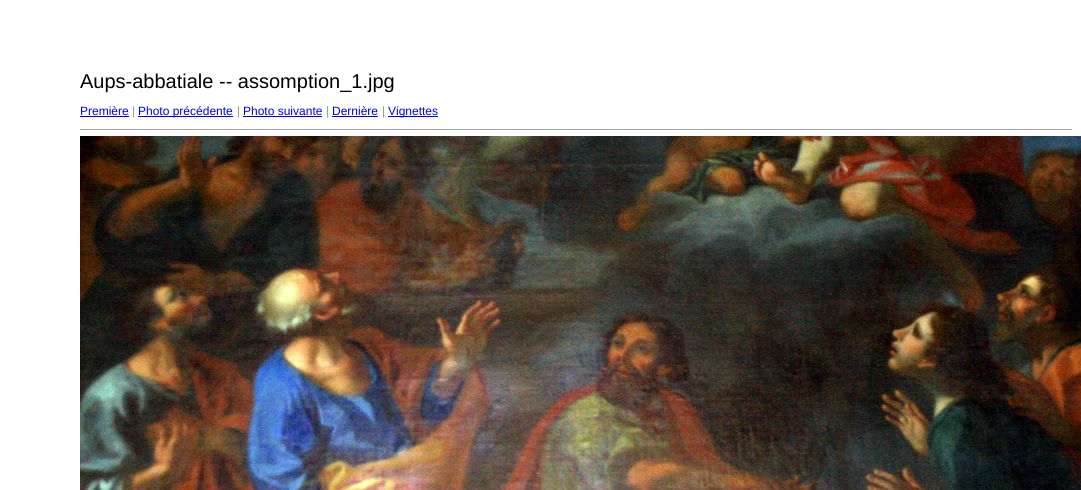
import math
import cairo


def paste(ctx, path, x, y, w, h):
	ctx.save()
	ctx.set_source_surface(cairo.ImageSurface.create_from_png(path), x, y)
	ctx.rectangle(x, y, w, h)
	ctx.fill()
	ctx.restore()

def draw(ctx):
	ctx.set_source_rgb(1, 1, 1)
	ctx.paint()
	ctx.select_font_face('Liberation Sans')
	ctx.set_font_size(20)
	ctx.set_source_rgb(0, 0, 0)
	ctx.move_to(80, 88)
	ctx.show_text('Aups-abbatiale -- assomption_1.jpg')
	ctx.set_font_size(12)
	ctx.set_source_rgb(0, 0, 0.933)
	ctx.move_to(80, 115)
	ctx.show_text('Première')
	ctx.rectangle(80, 116, 49, 1)
	ctx.fill()
	ctx.set_source_rgb(0.592, 0.592, 0.592)
	ctx.move_to(132, 115)
	ctx.show_text('|')
	ctx.set_source_rgb(0, 0, 0.933)
	ctx.rectangle(138, 116, 95, 1)
	ctx.fill()
	ctx.move_to(138, 115)
	ctx.show_text('Photo précédente')
	ctx.set_source_rgb(0.592, 0.592, 0.592)
	ctx.move_to(237, 115)
	ctx.show_text('|')
	ctx.set_source_rgb(0, 0, 0.933)
	ctx.move_to(243, 115)
	ctx.show_text('Photo suivante')
	ctx.rectangle(243, 116, 79, 1)
	ctx.fill()
	ctx.set_source_rgb(0.592, 0.592, 0.592)
	ctx.move_to(326, 115)
	ctx.show_text('|')
	ctx.set_source_rgb(0, 0, 0.933)
	ctx.move_to(332, 115)
	ctx.show_text('Dernière')
	ctx.rectangle(332, 116, 46, 1)
	ctx.fill()
	ctx.set_source_rgb(0.592, 0.592, 0.592)
	ctx.move_to(382, 115)
	ctx.show_text('|')
	ctx.set_source_rgb(0, 0, 0.933)
	ctx.rectangle(388, 116, 50, 1)
	ctx.fill()
	ctx.move_to(388, 115)
	ctx.show_text('Vignettes')
	ctx.set_source_rgb(0.624, 0.624, 0.624)
	ctx.rectangle(80, 129, 993, 1)
	ctx.fill()
	ctx.set_source_rgb(0.933, 0.933, 0.933)
	ctx.rectangle(1072, 129, 1, 1)
	ctx.fill()
	paste(ctx, 'media/1.png', 80, 136, 1001, 354)


surface = cairo.ImageSurface(cairo.FORMAT_RGB24, 1081, 490)
ctx = cairo.Context(surface)
options = cairo.FontOptions()
options.set_hint_metrics(cairo.HINT_METRICS_OFF)
options.set_hint_style(cairo.HINT_STYLE_NONE)
ctx.set_font_options(options)
ctx.set_miter_limit(4)
draw(ctx)
surface.write_to_png('image.png')
